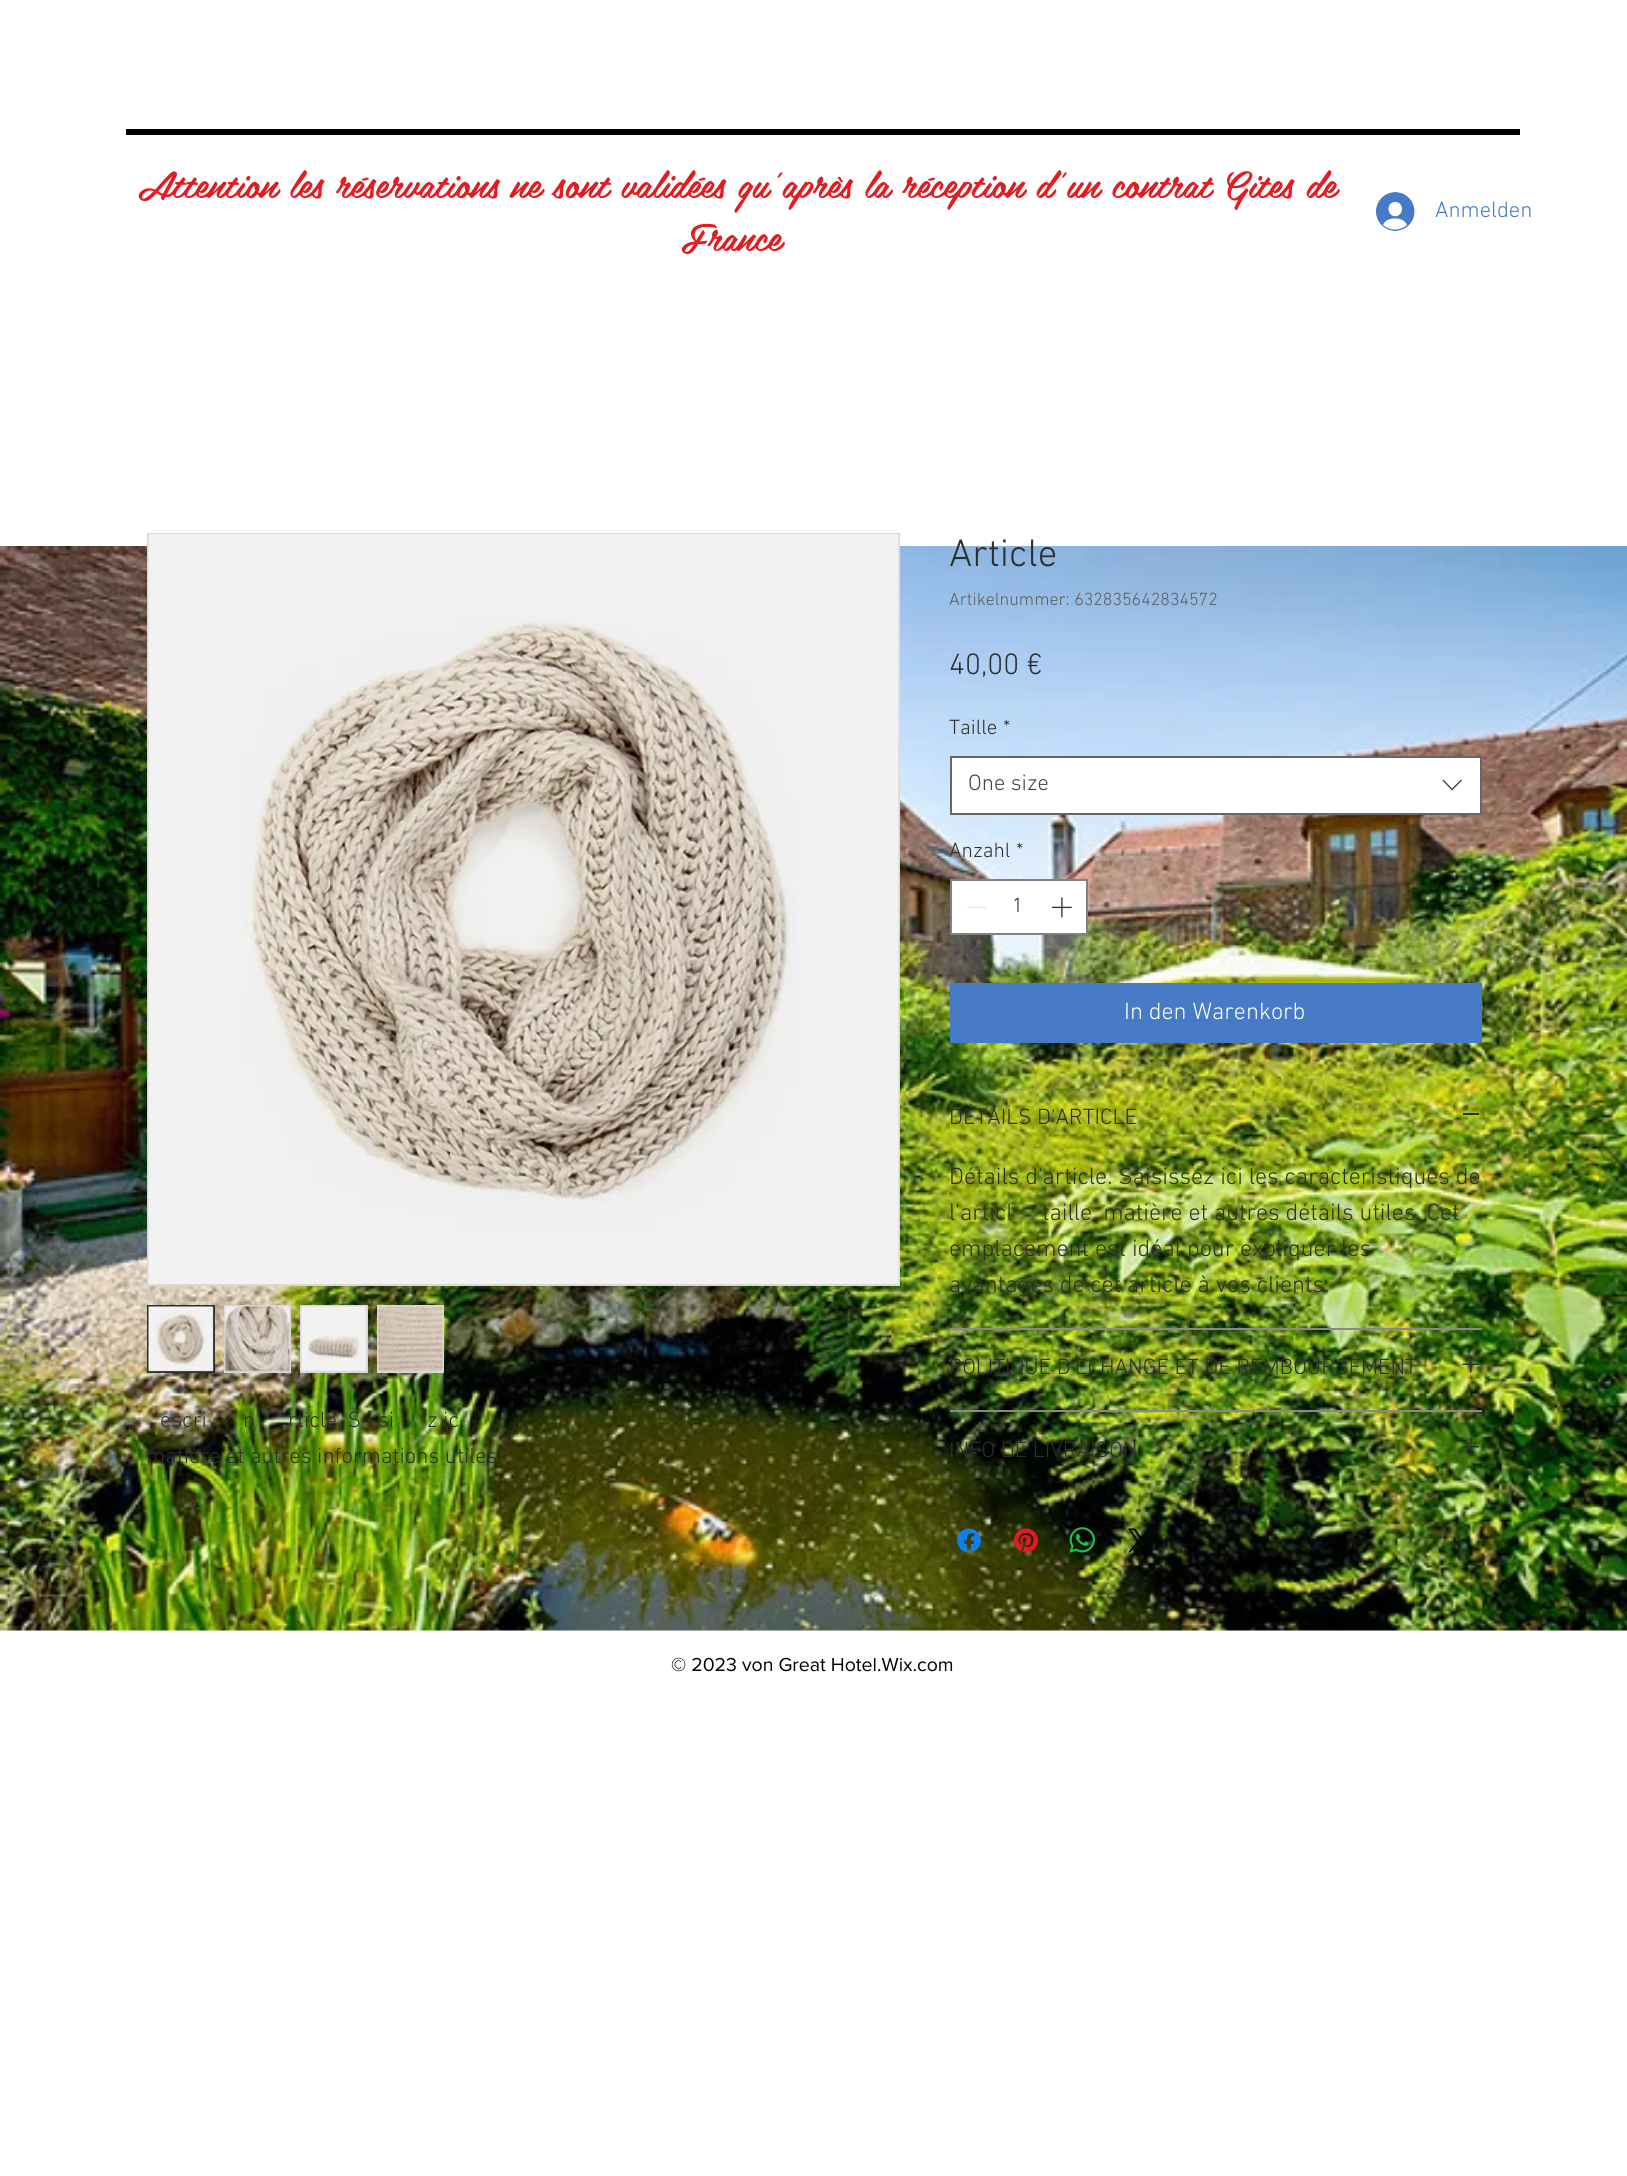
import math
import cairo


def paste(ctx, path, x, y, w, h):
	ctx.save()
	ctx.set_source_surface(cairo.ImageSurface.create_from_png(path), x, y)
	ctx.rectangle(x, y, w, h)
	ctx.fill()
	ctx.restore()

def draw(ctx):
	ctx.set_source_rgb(1, 1, 1)
	ctx.paint()
	ctx.set_source_rgb(0, 0, 0)
	ctx.new_path()
	ctx.move_to(126, 129)
	ctx.line_to(126, 135)
	ctx.line_to(1520, 135)
	ctx.line_to(1520, 39)
	ctx.line_to(1520, 129)
	ctx.close_path()
	ctx.fill()
	ctx.select_font_face('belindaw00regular')
	ctx.set_font_size(37.5)
	ctx.set_source_rgb(0.886, 0.11, 0.129)
	ctx.move_to(138, 198)
	ctx.show_text('Attention les réservations ne sont validées qu\'après la réception d\'un contrat Gites de')
	ctx.move_to(681, 251)
	ctx.show_text('France')
	paste(ctx, 'media/1.png', 1376, 192, 39, 39)
	ctx.select_font_face('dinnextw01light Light')
	ctx.set_font_size(22.5)
	ctx.set_source_rgb(0.282, 0.482, 0.78)
	ctx.move_to(1435, 217)
	ctx.show_text('Anmelden')
	paste(ctx, 'media/14.png', 0, 546, 1627, 1085)
	ctx.rectangle(148, 534, 751, 751)
	ctx.set_source_rgb(0.859, 0.843, 0.843)
	ctx.stroke()
	paste(ctx, 'media/2.png', 148, 534, 751, 750)
	ctx.rectangle(148, 1306, 66, 66)
	ctx.fill_preserve()
	ctx.set_source_rgb(0.18, 0.18, 0.18)
	ctx.stroke()
	paste(ctx, 'media/3.png', 148, 1306, 66, 66)
	ctx.set_source_rgb(0.859, 0.843, 0.843)
	ctx.rectangle(224, 1305, 67, 68)
	ctx.fill()
	paste(ctx, 'media/4.png', 224, 1306, 66, 66)
	ctx.rectangle(300, 1305, 68, 68)
	ctx.fill()
	paste(ctx, 'media/5.png', 301, 1306, 66, 66)
	ctx.rectangle(377, 1305, 67, 68)
	ctx.fill()
	paste(ctx, 'media/6.png', 377, 1306, 66, 66)
	ctx.set_source_rgb(0.18, 0.18, 0.18)
	for x, y, s in [
		(160, 1427, 'escri'),
		(243, 1427, 'n'),
		(288, 1427, 'rticle. S'),
		(378, 1427, 'si'),
		(427, 1427, 'z ic'),
		(146, 1463, 'matière et autres informations utiles'),
	]:
		ctx.move_to(x, y)
		ctx.show_text(s)
	ctx.set_font_size(39)
	ctx.move_to(949, 566)
	ctx.show_text('Article')
	ctx.set_font_size(18)
	ctx.set_source_rgb(0.361, 0.361, 0.361)
	ctx.move_to(949, 605)
	ctx.show_text('Artikelnummer: 632835642834572')
	ctx.set_font_size(30)
	ctx.set_source_rgb(0.18, 0.18, 0.18)
	ctx.move_to(949, 674)
	ctx.show_text('40,00 €')
	ctx.set_font_size(21)
	ctx.move_to(949, 734)
	ctx.show_text('Taille')
	ctx.move_to(1003, 734)
	ctx.show_text('*')
	ctx.set_source_rgb(1, 1, 1)
	ctx.rectangle(951, 757, 530, 57)
	ctx.fill_preserve()
	ctx.set_source_rgb(0.4, 0.4, 0.4)
	ctx.stroke()
	ctx.set_font_size(22.5)
	ctx.set_source_rgb(0.267, 0.267, 0.267)
	ctx.move_to(968, 790)
	ctx.show_text('One size')
	ctx.set_fill_rule(cairo.FILL_RULE_EVEN_ODD)
	ctx.new_path()
	ctx.move_to(1461, 779.5)
	ctx.line_to(1462, 780.5)
	ctx.line_to(1452, 790.5)
	ctx.line_to(1442.5, 780.5)
	ctx.line_to(1443.5, 779.5)
	ctx.line_to(1452, 788.5)
	ctx.close_path()
	ctx.fill()
	ctx.set_font_size(21)
	ctx.set_source_rgb(0.18, 0.18, 0.18)
	ctx.move_to(949, 857)
	ctx.show_text('Anzahl')
	ctx.move_to(1016, 857)
	ctx.show_text('*')
	ctx.set_source_rgb(1, 1, 1)
	ctx.rectangle(951, 880, 136, 54)
	ctx.fill_preserve()
	ctx.set_source_rgb(0.51, 0.51, 0.51)
	ctx.stroke()
	ctx.set_source_rgb(0.89, 0.89, 0.89)
	ctx.rectangle(967, 907, 19, 1)
	ctx.fill()
	ctx.set_source_rgb(0.18, 0.18, 0.18)
	ctx.move_to(1012, 912)
	ctx.show_text('1')
	paste(ctx, 'media/7.png', 1052, 897, 20, 21)
	ctx.set_source_rgb(0.282, 0.482, 0.78)
	ctx.rectangle(950, 983, 532, 60)
	ctx.fill()
	ctx.set_font_size(24)
	ctx.set_source_rgb(1, 1, 1)
	ctx.move_to(1124, 1019)
	ctx.show_text('In den Warenkorb')
	ctx.set_source_rgb(0.537, 0.537, 0.537)
	ctx.rectangle(950, 1328, 532, 2)
	ctx.fill()
	ctx.set_font_size(22.5)
	ctx.set_source_rgb(0.18, 0.18, 0.18)
	ctx.move_to(949, 1124)
	ctx.show_text('DÉTAILS D\'ARTICLE')
	ctx.rectangle(1463, 1113, 16, 2)
	ctx.fill()
	ctx.set_font_size(24)
	for x, y, s in [
		(949, 1184, 'Détails d\'article. Saisissez ici les caractéristiques de'),
		(949, 1220, 'l\'articl'),
		(1042, 1220, 'taille, matière et autres détails utiles. Cet'),
		(949, 1256, 'emplacement est idéal pour expliquer les'),
		(949, 1292, 'avantages de cet article à vos clients.'),
	]:
		ctx.move_to(x, y)
		ctx.show_text(s)
	ctx.set_source_rgb(0.537, 0.537, 0.537)
	ctx.rectangle(950, 1410, 532, 2)
	ctx.fill()
	ctx.set_font_size(22.5)
	ctx.set_source_rgb(0.18, 0.18, 0.18)
	ctx.move_to(949, 1374)
	ctx.show_text('POLITIQUE D\'ÉCHANGE ET DE REMBOURSEMENT')
	paste(ctx, 'media/8.png', 1462, 1356, 17, 17)
	ctx.move_to(949, 1457)
	ctx.show_text('INFO DE LIVRAISON')
	paste(ctx, 'media/9.png', 1462, 1438, 17, 17)
	paste(ctx, 'media/10.png', 957, 1528, 24, 25)
	paste(ctx, 'media/11.png', 1014, 1528, 24, 25)
	paste(ctx, 'media/12.png', 1069, 1527, 26, 26)
	paste(ctx, 'media/13.png', 1128, 1528, 23, 25)
	ctx.select_font_face('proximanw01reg')
	ctx.set_font_size(19.5)
	ctx.set_source_rgb(0, 0, 0)
	ctx.move_to(671, 1671)
	ctx.show_text('© 2023 von Great Hotel.Wix.com')


surface = cairo.ImageSurface(cairo.FORMAT_RGB24, 1627, 2176)
ctx = cairo.Context(surface)
options = cairo.FontOptions()
options.set_hint_metrics(cairo.HINT_METRICS_OFF)
options.set_hint_style(cairo.HINT_STYLE_NONE)
ctx.set_font_options(options)
ctx.set_miter_limit(4)
draw(ctx)
surface.write_to_png('image.png')
